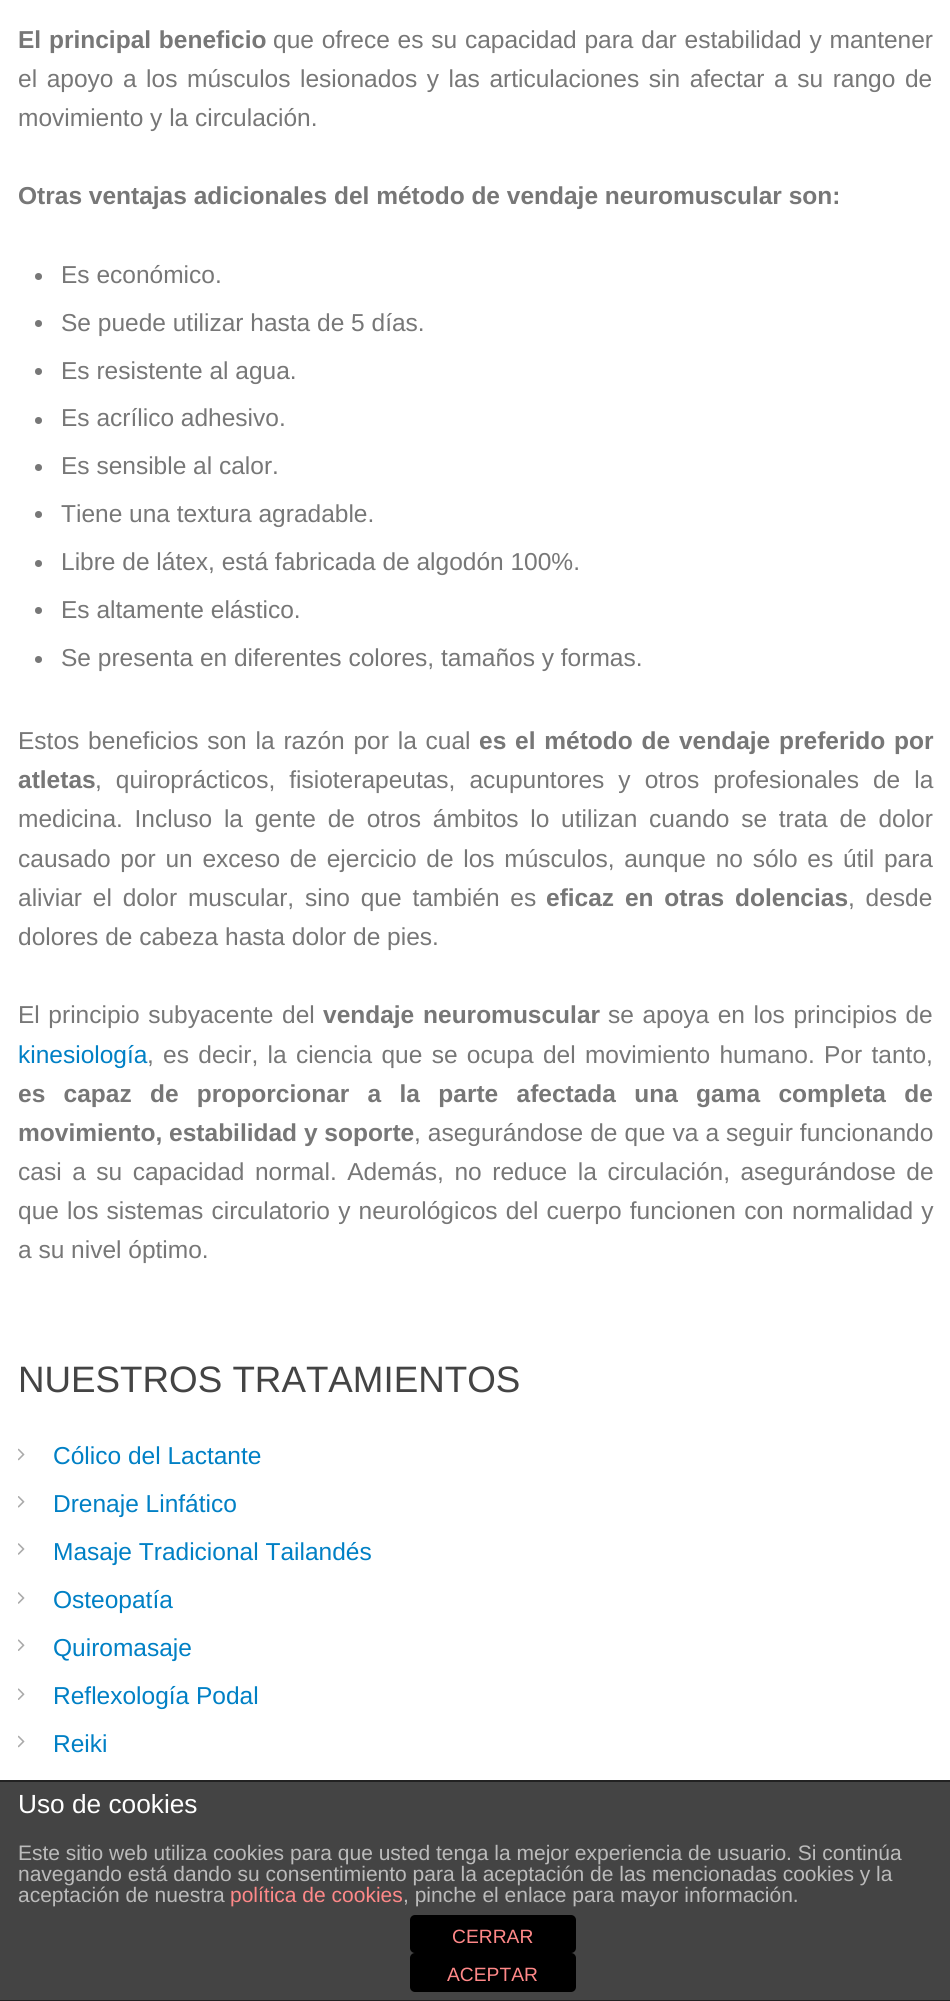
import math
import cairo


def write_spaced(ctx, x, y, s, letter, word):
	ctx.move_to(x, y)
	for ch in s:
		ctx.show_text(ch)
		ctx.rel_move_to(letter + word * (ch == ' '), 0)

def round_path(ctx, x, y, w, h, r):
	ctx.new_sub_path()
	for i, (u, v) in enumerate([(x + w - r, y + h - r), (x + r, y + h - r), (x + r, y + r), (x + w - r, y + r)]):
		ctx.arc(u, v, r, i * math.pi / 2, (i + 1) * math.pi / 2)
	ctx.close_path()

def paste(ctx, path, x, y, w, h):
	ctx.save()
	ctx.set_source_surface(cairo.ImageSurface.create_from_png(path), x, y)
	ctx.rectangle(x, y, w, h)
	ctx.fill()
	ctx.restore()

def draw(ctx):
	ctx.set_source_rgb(1, 1, 1)
	ctx.paint()
	ctx.select_font_face('Arimo', cairo.FONT_SLANT_NORMAL, cairo.FONT_WEIGHT_BOLD)
	ctx.set_font_size(24.5)
	ctx.set_source_rgb(0.467, 0.467, 0.467)
	write_spaced(ctx, 18, 48, 'El principal beneficio', 0, 1)
	ctx.select_font_face('Arimo')
	write_spaced(ctx, 273, 48, 'que ofrece es su capacidad para dar estabilidad y mantener', 0, 1)
	write_spaced(ctx, 18, 87, 'el apoyo a los músculos lesionados y las articulaciones sin afectar a su rango de', 0, 2.75)
	ctx.move_to(18, 126)
	ctx.show_text('movimiento y la circulación.')
	ctx.select_font_face('Arimo', cairo.FONT_SLANT_NORMAL, cairo.FONT_WEIGHT_BOLD)
	ctx.move_to(18, 204)
	ctx.show_text('Otras ventajas adicionales del método de vendaje neuromuscular son:')
	ctx.new_path()
	ctx.arc(38.5, 276.5, 3.5, 0, 2 * math.pi)
	ctx.fill()
	ctx.select_font_face('Arimo')
	ctx.move_to(61, 283)
	ctx.show_text('Es económico.')
	ctx.new_path()
	ctx.arc(38.5, 323.5, 3.5, 0, 2 * math.pi)
	ctx.fill()
	ctx.move_to(61, 331)
	ctx.show_text('Se puede utilizar hasta de 5 días.')
	ctx.new_path()
	ctx.arc(38.5, 371.5, 3.5, 0, 2 * math.pi)
	ctx.fill()
	ctx.move_to(61, 379)
	ctx.show_text('Es resistente al agua.')
	ctx.new_path()
	ctx.arc(38.5, 420.5, 3.5, 0, 2 * math.pi)
	ctx.fill()
	ctx.move_to(61, 426)
	ctx.show_text('Es acrílico adhesivo.')
	ctx.new_path()
	ctx.arc(38.5, 467.5, 3.5, 0, 2 * math.pi)
	ctx.fill()
	ctx.move_to(61, 474)
	ctx.show_text('Es sensible al calor.')
	ctx.new_path()
	ctx.arc(38.5, 514.5, 3.5, 0, 2 * math.pi)
	ctx.fill()
	ctx.move_to(61, 522)
	ctx.show_text('Tiene una textura agradable.')
	ctx.new_path()
	ctx.arc(38.5, 563.5, 3.5, 0, 2 * math.pi)
	ctx.fill()
	ctx.move_to(61, 570)
	ctx.show_text('Libre de látex, está fabricada de algodón 100%.')
	ctx.new_path()
	ctx.arc(38.5, 610.5, 3.5, 0, 2 * math.pi)
	ctx.fill()
	ctx.move_to(61, 618)
	ctx.show_text('Es altamente elástico.')
	ctx.new_path()
	ctx.arc(38.5, 659.5, 3.5, 0, 2 * math.pi)
	ctx.fill()
	ctx.move_to(61, 666)
	ctx.show_text('Se presenta en diferentes colores, tamaños y formas.')
	write_spaced(ctx, 18, 749, 'Estos beneficios son la razón por la cual', 0, 2)
	ctx.select_font_face('Arimo', cairo.FONT_SLANT_NORMAL, cairo.FONT_WEIGHT_BOLD)
	write_spaced(ctx, 479, 749, 'es el método de vendaje preferido por', 0, 2)
	ctx.move_to(18, 788)
	ctx.show_text('atletas')
	ctx.select_font_face('Arimo')
	write_spaced(ctx, 95, 788, ', quiroprácticos, fisioterapeutas, acupuntores y otros profesionales de la', 0, 7.25)
	write_spaced(ctx, 18, 827, 'medicina. Incluso la gente de otros ámbitos lo utilizan cuando se trata de dolor', 0, 4.9)
	write_spaced(ctx, 18, 867, 'causado por un exceso de ejercicio de los músculos, aunque no sólo es útil para', 0, 2.9)
	write_spaced(ctx, 18, 906, 'aliviar el dolor muscular, sino que también es', 0, 4)
	ctx.select_font_face('Arimo', cairo.FONT_SLANT_NORMAL, cairo.FONT_WEIGHT_BOLD)
	write_spaced(ctx, 546, 906, 'eficaz en otras dolencias', 0, 4)
	ctx.select_font_face('Arimo')
	write_spaced(ctx, 848, 906, ', desde', 0, 4)
	ctx.move_to(18, 945)
	ctx.show_text('dolores de cabeza hasta dolor de pies.')
	write_spaced(ctx, 18, 1023, 'El principio subyacente del', 0, 1.75)
	ctx.select_font_face('Arimo', cairo.FONT_SLANT_NORMAL, cairo.FONT_WEIGHT_BOLD)
	write_spaced(ctx, 323, 1023, 'vendaje neuromuscular', 0, 2)
	ctx.select_font_face('Arimo')
	write_spaced(ctx, 608, 1023, 'se apoya en los principios de', 0, 1.75)
	ctx.set_source_rgb(0, 0.502, 0.773)
	ctx.move_to(18, 1063)
	ctx.show_text('kinesiología')
	ctx.set_source_rgb(0.467, 0.467, 0.467)
	write_spaced(ctx, 147, 1063, ', es decir, la ciencia que se ocupa del movimiento humano. Por tanto,', 0, 2.5)
	ctx.select_font_face('Arimo', cairo.FONT_SLANT_NORMAL, cairo.FONT_WEIGHT_BOLD)
	write_spaced(ctx, 18, 1102, 'es capaz de proporcionar a la parte afectada una gama completa de', 0, 11.5)
	ctx.move_to(18, 1141)
	ctx.show_text('movimiento, estabilidad y soporte')
	ctx.select_font_face('Arimo')
	write_spaced(ctx, 414, 1141, ', asegurándose de que va a seguir funcionando', 0, 0.25)
	write_spaced(ctx, 18, 1180, 'casi a su capacidad normal. Además, no reduce la circulación, asegurándose de', 0, 3.75)
	write_spaced(ctx, 18, 1219, 'que los sistemas circulatorio y neurológicos del cuerpo funcionen con normalidad y', 0, 1.4)
	ctx.move_to(18, 1258)
	ctx.show_text('a su nivel óptimo.')
	ctx.set_font_size(36.75)
	ctx.set_source_rgb(0.267, 0.267, 0.267)
	ctx.move_to(18, 1392)
	ctx.show_text('NUESTROS TRATAMIENTOS')
	paste(ctx, 'media/1.png', 18, 1448, 7, 13)
	ctx.set_font_size(24.5)
	ctx.set_source_rgb(0, 0.502, 0.773)
	ctx.move_to(53, 1464)
	ctx.show_text('Cólico del Lactante')
	paste(ctx, 'media/2.png', 18, 1496, 7, 12)
	ctx.move_to(53, 1512)
	ctx.show_text('Drenaje Linfático')
	paste(ctx, 'media/3.png', 18, 1543, 7, 12)
	ctx.move_to(53, 1560)
	ctx.show_text('Masaje Tradicional Tailandés')
	paste(ctx, 'media/3.png', 18, 1592, 7, 12)
	ctx.move_to(53, 1608)
	ctx.show_text('Osteopatía')
	paste(ctx, 'media/4.png', 18, 1639, 7, 12)
	ctx.move_to(53, 1656)
	ctx.show_text('Quiromasaje')
	paste(ctx, 'media/4.png', 18, 1688, 7, 12)
	ctx.move_to(53, 1704)
	ctx.show_text('Reflexología Podal')
	paste(ctx, 'media/1.png', 18, 1735, 7, 13)
	ctx.move_to(53, 1752)
	ctx.show_text('Reiki')
	ctx.set_source_rgb(0.267, 0.267, 0.267)
	ctx.rectangle(0, 1782, 950, 218)
	ctx.fill()
	ctx.set_source_rgb(0.133, 0.133, 0.133)
	ctx.rectangle(0, 1780, 950, 2)
	ctx.rectangle(0, 2000, 950, 1)
	ctx.fill()
	ctx.select_font_face('Liberation Sans')
	ctx.set_font_size(26.25)
	ctx.set_source_rgb(1, 1, 1)
	ctx.move_to(18, 1813)
	ctx.show_text('Uso de cookies')
	ctx.set_font_size(21)
	ctx.set_source_rgb(0.733, 0.733, 0.733)
	for x, y, s in [
		(18, 1860, 'Este sitio web utiliza cookies para que usted tenga la mejor experiencia de usuario. Si continúa'),
		(18, 1881, 'navegando está dando su consentimiento para la aceptación de las mencionadas cookies y la'),
		(18, 1902, 'aceptación de nuestra'),
	]:
		ctx.move_to(x, y)
		ctx.show_text(s)
	ctx.set_source_rgb(1, 0.533, 0.533)
	ctx.move_to(230, 1902)
	ctx.show_text('política de cookies')
	ctx.set_source_rgb(0.733, 0.733, 0.733)
	ctx.move_to(403, 1902)
	ctx.show_text(', pinche el enlace para mayor información.')
	ctx.set_source_rgb(0, 0, 0)
	round_path(ctx, 410, 1915, 166, 38, 5)
	ctx.fill()
	ctx.set_font_size(19.25)
	ctx.set_source_rgb(1, 0.533, 0.533)
	ctx.move_to(452, 1943)
	ctx.show_text('CERRAR')
	ctx.set_source_rgb(0, 0, 0)
	round_path(ctx, 410, 1953, 166, 39, 5)
	ctx.fill()
	ctx.set_source_rgb(1, 0.533, 0.533)
	ctx.move_to(447, 1981)
	ctx.show_text('ACEPTAR')


surface = cairo.ImageSurface(cairo.FORMAT_RGB24, 950, 2001)
ctx = cairo.Context(surface)
options = cairo.FontOptions()
options.set_hint_metrics(cairo.HINT_METRICS_OFF)
options.set_hint_style(cairo.HINT_STYLE_NONE)
ctx.set_font_options(options)
ctx.set_miter_limit(4)
draw(ctx)
surface.write_to_png('image.png')
